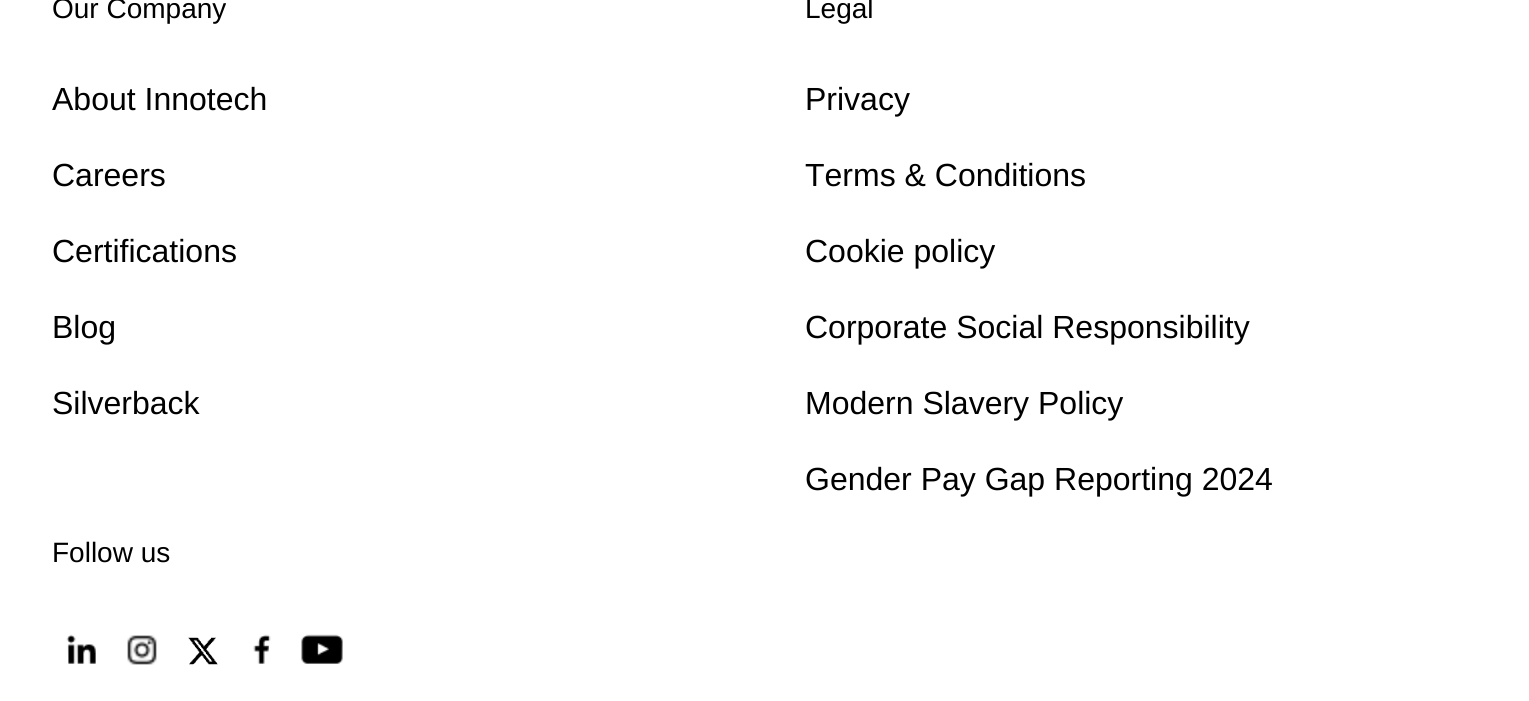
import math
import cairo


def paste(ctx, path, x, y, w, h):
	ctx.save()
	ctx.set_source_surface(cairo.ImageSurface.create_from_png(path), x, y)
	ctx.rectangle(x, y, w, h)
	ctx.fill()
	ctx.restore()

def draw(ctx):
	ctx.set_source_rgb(1, 1, 1)
	ctx.paint()
	ctx.select_font_face('Liberation Sans')
	ctx.set_font_size(28)
	ctx.set_source_rgb(0, 0, 0)
	ctx.move_to(52, 18)
	ctx.show_text('Our Company')
	ctx.set_font_size(32)
	for x, y, s in [
		(52, 110, 'About Innotech'),
		(52, 186, 'Careers'),
		(52, 262, 'Certifications'),
		(52, 338, 'Blog'),
		(52, 414, 'Silverback'),
	]:
		ctx.move_to(x, y)
		ctx.show_text(s)
	ctx.set_font_size(28)
	ctx.move_to(805, 18)
	ctx.show_text('Legal')
	ctx.set_font_size(32)
	for x, y, s in [
		(805, 110, 'Privacy'),
		(805, 186, 'Terms & Conditions'),
		(805, 262, 'Cookie policy'),
		(805, 338, 'Corporate Social Responsibility'),
		(805, 414, 'Modern Slavery Policy'),
		(805, 490, 'Gender Pay Gap Reporting 2024'),
	]:
		ctx.move_to(x, y)
		ctx.show_text(s)
	ctx.set_font_size(28)
	ctx.move_to(52, 562)
	ctx.show_text('Follow us')
	paste(ctx, 'media/1.png', 66, 634, 30, 30)
	paste(ctx, 'media/2.png', 127, 635, 30, 30)
	paste(ctx, 'media/3.png', 188, 637, 30, 28)
	paste(ctx, 'media/4.png', 253, 634, 18, 30)
	paste(ctx, 'media/5.png', 301, 634, 42, 30)


surface = cairo.ImageSurface(cairo.FORMAT_RGB24, 1529, 701)
ctx = cairo.Context(surface)
options = cairo.FontOptions()
options.set_hint_metrics(cairo.HINT_METRICS_OFF)
options.set_hint_style(cairo.HINT_STYLE_NONE)
ctx.set_font_options(options)
ctx.set_miter_limit(4)
draw(ctx)
surface.write_to_png('image.png')
